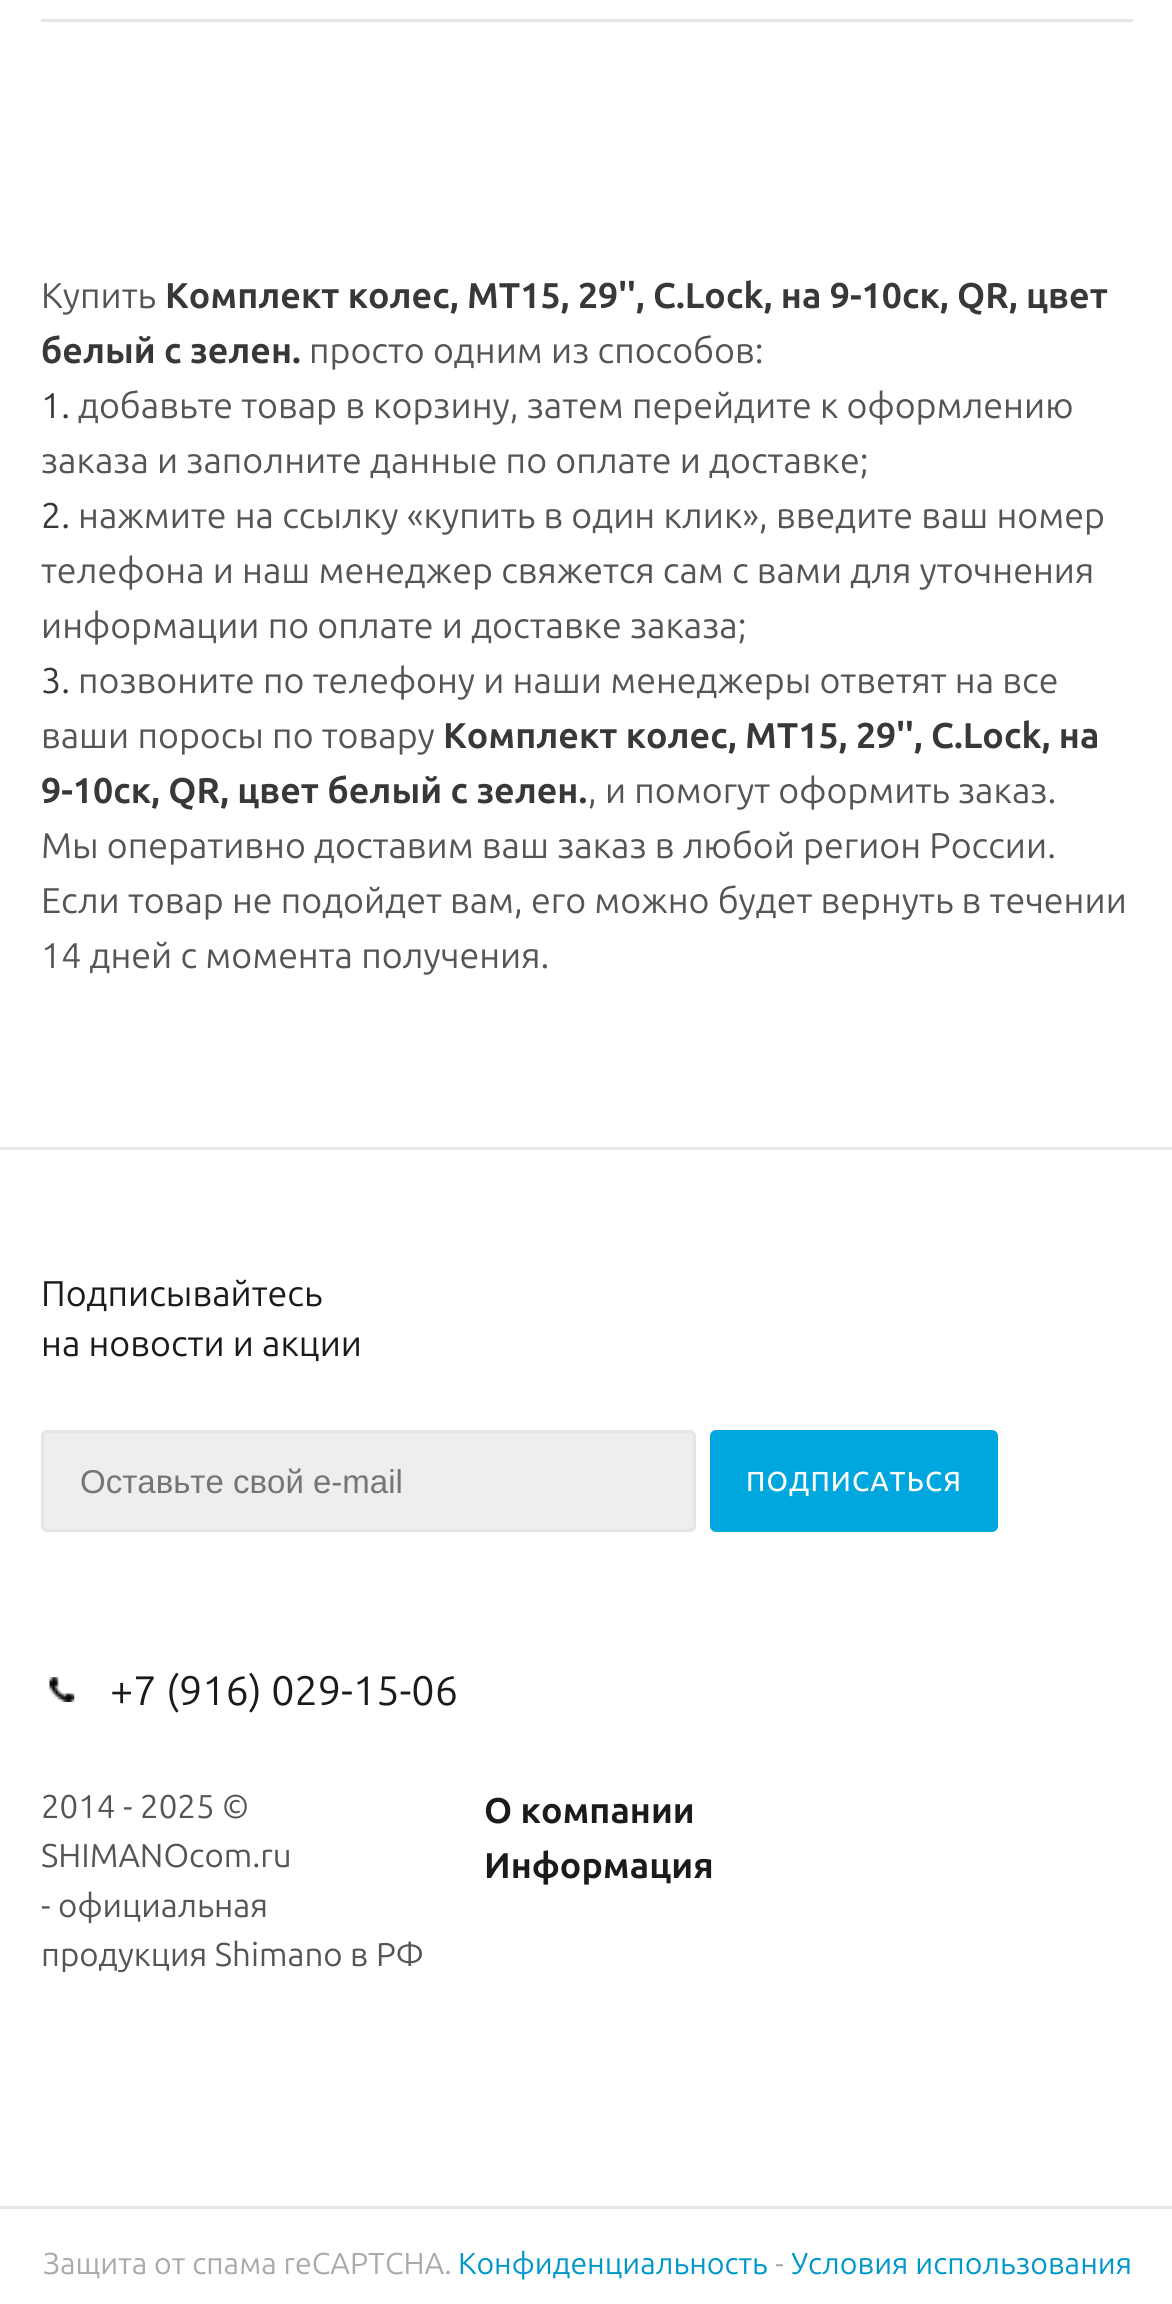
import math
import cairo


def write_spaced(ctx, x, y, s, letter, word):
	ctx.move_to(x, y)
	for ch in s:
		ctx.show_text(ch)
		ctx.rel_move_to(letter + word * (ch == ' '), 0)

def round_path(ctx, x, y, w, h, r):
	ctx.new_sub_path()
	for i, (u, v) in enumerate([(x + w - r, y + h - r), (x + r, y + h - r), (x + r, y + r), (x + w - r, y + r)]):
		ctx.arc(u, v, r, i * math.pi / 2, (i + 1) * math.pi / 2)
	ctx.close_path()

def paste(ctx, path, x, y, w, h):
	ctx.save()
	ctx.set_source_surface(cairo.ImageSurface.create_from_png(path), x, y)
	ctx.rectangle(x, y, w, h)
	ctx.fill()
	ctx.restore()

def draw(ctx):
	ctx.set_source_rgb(1, 1, 1)
	ctx.paint()
	ctx.set_source_rgb(0.898, 0.898, 0.898)
	ctx.rectangle(41, 19, 1092, 3)
	ctx.fill()
	ctx.select_font_face('Ubuntu')
	ctx.set_font_size(35.75)
	ctx.set_source_rgb(0.333, 0.333, 0.333)
	ctx.move_to(41, 308)
	ctx.show_text('Купить')
	ctx.select_font_face('Ubuntu', cairo.FONT_SLANT_NORMAL, cairo.FONT_WEIGHT_BOLD)
	ctx.set_source_rgb(0.22, 0.22, 0.22)
	ctx.move_to(165, 308)
	ctx.show_text('Комплект колес, MT15, 29\'\', C.Lock, на 9-10ск, QR, цвет')
	ctx.move_to(41, 363)
	ctx.show_text('белый с зелен.')
	ctx.select_font_face('Ubuntu')
	ctx.set_source_rgb(0.333, 0.333, 0.333)
	ctx.move_to(309, 363)
	ctx.show_text('просто одним из способов:')
	ctx.set_source_rgb(0.22, 0.22, 0.22)
	ctx.move_to(41, 418)
	ctx.show_text('1.')
	ctx.set_source_rgb(0.333, 0.333, 0.333)
	ctx.move_to(78, 418)
	ctx.show_text('добавьте товар в корзину, затем перейдите к оформлению')
	ctx.move_to(41, 473)
	ctx.show_text('заказа и заполните данные по оплате и доставке;')
	ctx.set_source_rgb(0.22, 0.22, 0.22)
	ctx.move_to(41, 528)
	ctx.show_text('2.')
	ctx.set_source_rgb(0.333, 0.333, 0.333)
	for x, y, s in [
		(78, 528, 'нажмите на ссылку «купить в один клик», введите ваш номер'),
		(41, 583, 'телефона и наш менеджер свяжется сам с вами для уточнения'),
		(41, 638, 'информации по оплате и доставке заказа;'),
	]:
		ctx.move_to(x, y)
		ctx.show_text(s)
	ctx.set_source_rgb(0.22, 0.22, 0.22)
	ctx.move_to(41, 693)
	ctx.show_text('3.')
	ctx.set_source_rgb(0.333, 0.333, 0.333)
	ctx.move_to(78, 693)
	ctx.show_text('позвоните по телефону и наши менеджеры ответят на все')
	ctx.move_to(41, 748)
	ctx.show_text('ваши поросы по товару')
	ctx.select_font_face('Ubuntu', cairo.FONT_SLANT_NORMAL, cairo.FONT_WEIGHT_BOLD)
	ctx.set_source_rgb(0.22, 0.22, 0.22)
	ctx.move_to(443, 748)
	ctx.show_text('Комплект колес, MT15, 29\'\', C.Lock, на')
	ctx.move_to(41, 803)
	ctx.show_text('9-10ск, QR, цвет белый с зелен.')
	ctx.select_font_face('Ubuntu')
	ctx.set_source_rgb(0.333, 0.333, 0.333)
	for x, y, s in [
		(588, 803, ', и помогут оформить заказ.'),
		(41, 858, 'Мы оперативно доставим ваш заказ в любой регион России.'),
		(41, 913, 'Если товар не подойдет вам, его можно будет вернуть в течении'),
		(41, 968, '14 дней с момента получения.'),
	]:
		ctx.move_to(x, y)
		ctx.show_text(s)
	ctx.set_source_rgb(0.906, 0.906, 0.906)
	ctx.rectangle(0, 1147, 1172, 3)
	ctx.fill()
	ctx.set_source_rgb(0.114, 0.102, 0.102)
	ctx.move_to(41, 1306)
	ctx.show_text('Подписывайтесь')
	ctx.move_to(41, 1356)
	ctx.show_text('на новости и акции')
	ctx.set_source_rgb(0.933, 0.933, 0.933)
	round_path(ctx, 42.5, 1431.5, 652, 99, 4.5)
	ctx.fill_preserve()
	ctx.set_source_rgb(0.898, 0.898, 0.898)
	ctx.set_line_width(3)
	ctx.stroke()
	ctx.select_font_face('Liberation Sans')
	ctx.set_font_size(33)
	ctx.set_source_rgb(0.459, 0.459, 0.459)
	ctx.move_to(80, 1493)
	ctx.show_text('Оставьте свой e-mail')
	ctx.set_source_rgb(0, 0.655, 0.875)
	round_path(ctx, 710, 1430, 288, 102, 6)
	ctx.fill()
	ctx.select_font_face('Ubuntu Medium')
	ctx.set_font_size(27.5)
	ctx.set_source_rgb(1, 1, 1)
	write_spaced(ctx, 746, 1491, 'ПОДПИСАТЬСЯ', 1.1, 0)
	paste(ctx, 'media/1.png', 49, 1677, 26, 25)
	ctx.select_font_face('Ubuntu')
	ctx.set_font_size(41.25)
	ctx.set_source_rgb(0.114, 0.102, 0.102)
	ctx.move_to(110, 1705)
	ctx.show_text('+7 (916) 029-15-06')
	ctx.set_font_size(33)
	ctx.set_source_rgb(0.333, 0.333, 0.333)
	for x, y, s in [
		(41, 1818, '2014 - 2025 ©'),
		(41, 1867, 'SHIMANOcom.ru'),
		(41, 1917, '- официальная'),
		(41, 1966, 'продукция Shimano в РФ'),
	]:
		ctx.move_to(x, y)
		ctx.show_text(s)
	ctx.select_font_face('Ubuntu', cairo.FONT_SLANT_NORMAL, cairo.FONT_WEIGHT_BOLD)
	ctx.set_font_size(35.75)
	ctx.set_source_rgb(0.114, 0.102, 0.102)
	ctx.move_to(484, 1823)
	ctx.show_text('О компании')
	ctx.move_to(484, 1878)
	ctx.show_text('Информация')
	ctx.set_source_rgb(0.906, 0.906, 0.906)
	ctx.rectangle(0, 2206, 1172, 3)
	ctx.fill()
	ctx.select_font_face('Ubuntu')
	ctx.set_font_size(30.25)
	ctx.set_source_rgb(0.667, 0.667, 0.667)
	ctx.move_to(43, 2274)
	ctx.show_text('Защита от спама reCAPTCHA.')
	ctx.set_source_rgb(0, 0.592, 0.796)
	ctx.move_to(458, 2274)
	ctx.show_text('Конфиденциальность')
	ctx.set_source_rgb(0.667, 0.667, 0.667)
	ctx.move_to(775, 2274)
	ctx.show_text('-')
	ctx.set_source_rgb(0, 0.592, 0.796)
	ctx.move_to(791, 2274)
	ctx.show_text('Условия использования')


surface = cairo.ImageSurface(cairo.FORMAT_RGB24, 1172, 2304)
ctx = cairo.Context(surface)
options = cairo.FontOptions()
options.set_hint_metrics(cairo.HINT_METRICS_OFF)
options.set_hint_style(cairo.HINT_STYLE_NONE)
ctx.set_font_options(options)
ctx.set_miter_limit(4)
draw(ctx)
surface.write_to_png('image.png')
